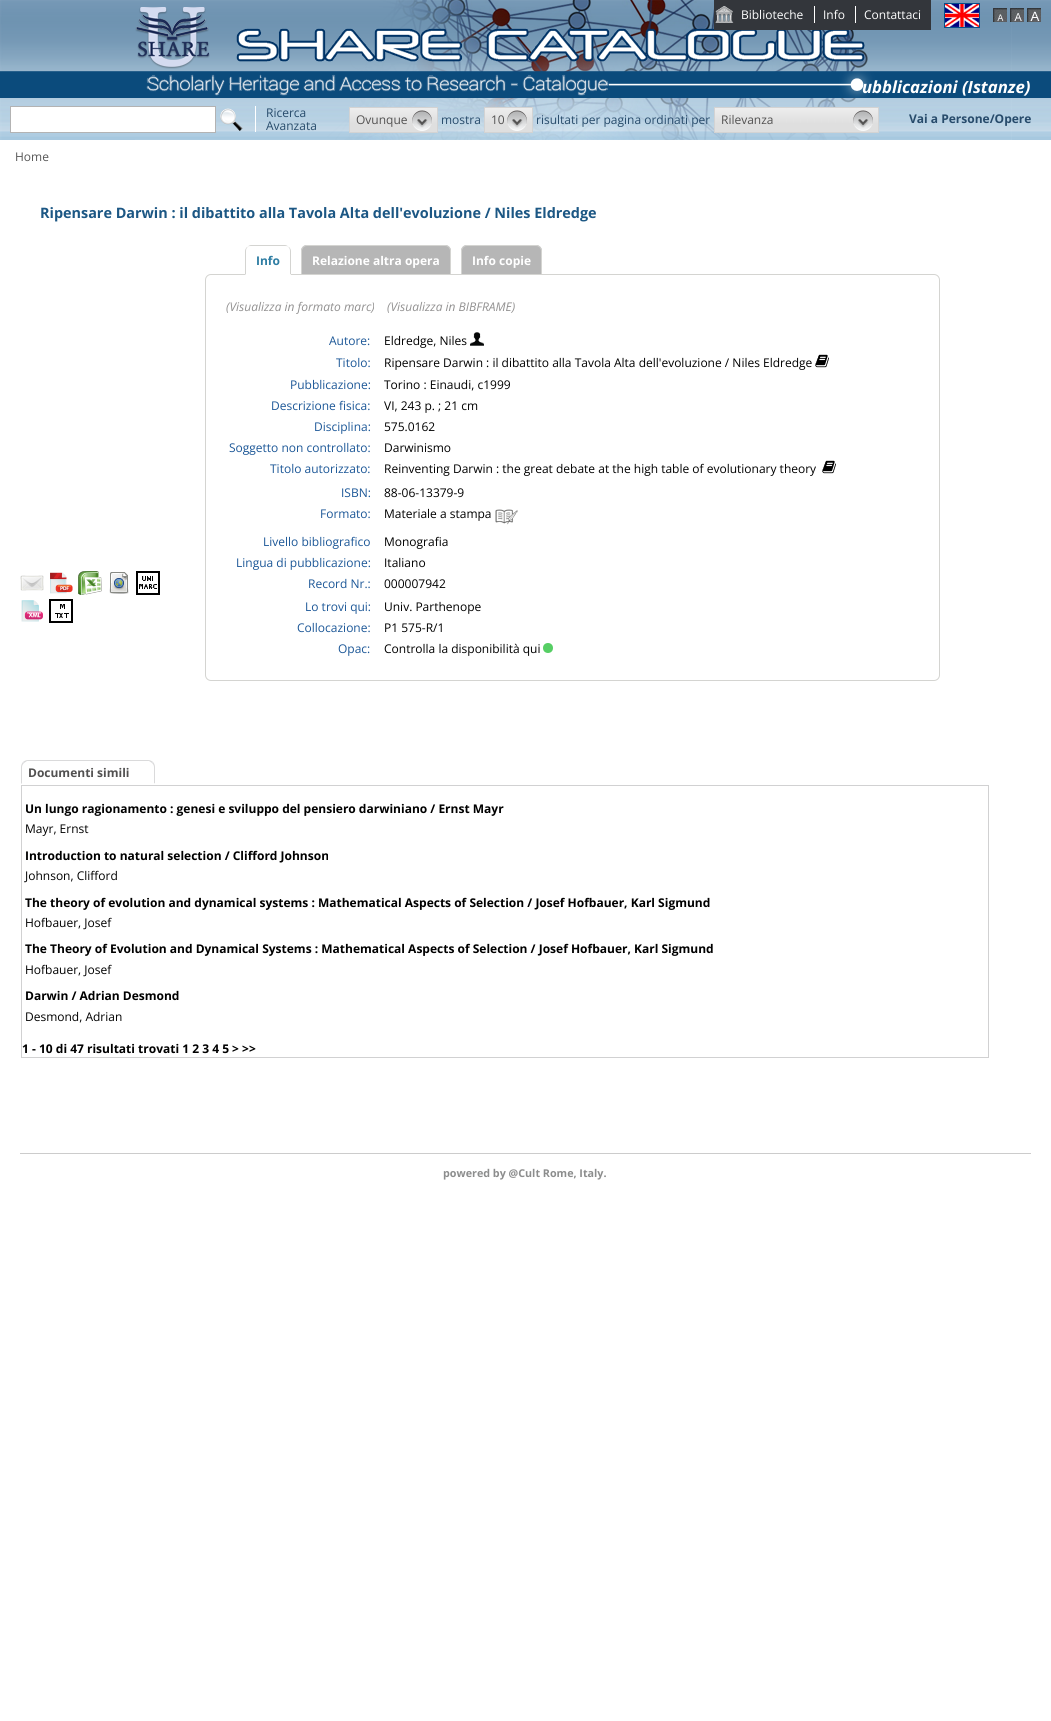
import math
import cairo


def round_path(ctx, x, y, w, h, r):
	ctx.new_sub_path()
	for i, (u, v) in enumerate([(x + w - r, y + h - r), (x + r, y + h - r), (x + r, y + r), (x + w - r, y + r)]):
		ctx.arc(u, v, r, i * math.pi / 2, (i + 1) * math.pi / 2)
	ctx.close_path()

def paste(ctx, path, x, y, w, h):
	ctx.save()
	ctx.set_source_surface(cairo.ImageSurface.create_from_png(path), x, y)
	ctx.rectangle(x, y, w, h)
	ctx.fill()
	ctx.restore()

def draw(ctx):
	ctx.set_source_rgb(1, 1, 1)
	ctx.paint()
	paste(ctx, 'media/1.png', 0, 0, 1051, 140)
	paste(ctx, 'media/2.png', 135, 0, 877, 140)
	ctx.set_source_rgb(0.2, 0.212, 0.231)
	ctx.rectangle(714, 0, 217, 30)
	ctx.fill()
	paste(ctx, 'media/3.png', 715, 6, 19, 17)
	ctx.select_font_face('Open Sans')
	ctx.set_font_size(12)
	ctx.set_source_rgb(1, 1, 1)
	ctx.move_to(741, 19)
	ctx.show_text('Biblioteche')
	ctx.rectangle(814, 6, 1, 17)
	ctx.fill()
	ctx.move_to(823, 19)
	ctx.show_text('Info')
	ctx.rectangle(855, 6, 1, 17)
	ctx.fill()
	ctx.move_to(864, 19)
	ctx.show_text('Contattaci')
	ctx.rectangle(944.5, 3.5, 35, 24)
	ctx.set_source_rgb(0.027, 0.306, 0.545)
	ctx.set_line_width(1)
	ctx.stroke()
	paste(ctx, 'media/4.png', 945, 4, 34, 23)
	paste(ctx, 'media/5.png', 993, 8, 14, 14)
	paste(ctx, 'media/6.png', 1010, 8, 14, 14)
	paste(ctx, 'media/7.png', 1027, 8, 14, 14)
	ctx.select_font_face('Open Sans', cairo.FONT_SLANT_ITALIC, cairo.FONT_WEIGHT_BOLD)
	ctx.set_font_size(16.75)
	ctx.set_source_rgb(1, 1, 1)
	ctx.move_to(862, 93)
	ctx.show_text('ubblicazioni (Istanze)')
	ctx.rectangle(10.5, 106.5, 205, 26)
	ctx.fill_preserve()
	ctx.set_source_rgb(0.702, 0.702, 0.702)
	ctx.stroke()
	paste(ctx, 'media/8.png', 220, 108, 23, 23)
	ctx.set_source_rgb(1, 1, 1)
	ctx.rectangle(255, 106, 1, 26)
	ctx.fill()
	ctx.select_font_face('Open Sans')
	ctx.set_font_size(12)
	ctx.set_source_rgb(0.153, 0.294, 0.42)
	ctx.move_to(266, 117)
	ctx.show_text('Ricerca')
	ctx.move_to(266, 130)
	ctx.show_text('Avanzata')
	paste(ctx, 'media/9.png', 350, 108, 87, 24)
	ctx.rectangle(349.5, 107.5, 88, 25)
	ctx.set_source_rgb(0.827, 0.827, 0.827)
	ctx.stroke()
	ctx.set_source_rgb(0.322, 0.318, 0.318)
	ctx.move_to(356, 124)
	ctx.show_text('Ovunque')
	paste(ctx, 'media/10.png', 412, 110, 20, 21)
	ctx.set_source_rgb(0.153, 0.294, 0.42)
	ctx.move_to(441, 124)
	ctx.show_text('mostra')
	paste(ctx, 'media/11.png', 485, 108, 47, 24)
	ctx.rectangle(484.5, 107.5, 48, 25)
	ctx.set_source_rgb(0.827, 0.827, 0.827)
	ctx.stroke()
	ctx.set_source_rgb(0.322, 0.318, 0.318)
	ctx.move_to(491, 124)
	ctx.show_text('10')
	paste(ctx, 'media/12.png', 507, 110, 20, 21)
	ctx.set_source_rgb(0.153, 0.294, 0.42)
	ctx.move_to(536, 124)
	ctx.show_text('risultati per pagina ordinati per')
	paste(ctx, 'media/13.png', 715, 108, 163, 24)
	ctx.rectangle(714.5, 107.5, 164, 25)
	ctx.set_source_rgb(0.827, 0.827, 0.827)
	ctx.stroke()
	ctx.set_source_rgb(0.322, 0.318, 0.318)
	ctx.move_to(721, 124)
	ctx.show_text('Rilevanza')
	paste(ctx, 'media/10.png', 853, 110, 20, 21)
	ctx.select_font_face('Open Sans', cairo.FONT_SLANT_NORMAL, cairo.FONT_WEIGHT_BOLD)
	ctx.set_source_rgb(0.153, 0.294, 0.42)
	ctx.move_to(909, 123)
	ctx.show_text('Vai a Persone/Opere')
	ctx.select_font_face('Open Sans')
	ctx.set_source_rgb(0.341, 0.341, 0.341)
	ctx.move_to(15, 161)
	ctx.show_text('Home')
	ctx.select_font_face('Open Sans', cairo.FONT_SLANT_NORMAL, cairo.FONT_WEIGHT_BOLD)
	ctx.set_font_size(14.4)
	ctx.set_source_rgb(0.11, 0.341, 0.518)
	ctx.move_to(40, 218)
	ctx.show_text('Ripensare Darwin : il dibattito alla Tavola Alta dell\'evoluzione / Niles Eldredge')
	paste(ctx, 'media/14.png', 20, 575, 24, 16)
	paste(ctx, 'media/15.png', 50, 572, 23, 22)
	paste(ctx, 'media/16.png', 78, 571, 24, 24)
	paste(ctx, 'media/17.png', 109, 572, 20, 22)
	paste(ctx, 'media/18.png', 136, 571, 24, 24)
	paste(ctx, 'media/19.png', 21, 600, 22, 22)
	paste(ctx, 'media/20.png', 49, 599, 24, 24)
	ctx.set_source_rgb(0.714, 0.714, 0.714)
	ctx.new_path()
	ctx.move_to(307, 245)
	ctx.line_to(445, 245)
	ctx.curve_to(448.5, 245, 451, 247.5, 451, 251)
	ctx.line_to(451, 275)
	ctx.line_to(301, 275)
	ctx.line_to(301, 251)
	ctx.curve_to(301, 247.5, 303.5, 245, 307, 245)
	ctx.close_path()
	ctx.fill()
	ctx.set_source_rgb(0.831, 0.831, 0.82)
	ctx.set_fill_rule(cairo.FILL_RULE_EVEN_ODD)
	ctx.new_path()
	ctx.move_to(307, 245)
	ctx.line_to(445, 245)
	ctx.curve_to(448, 245, 451, 248, 451, 251)
	ctx.line_to(451, 275)
	ctx.line_to(301, 275)
	ctx.line_to(301, 251)
	ctx.curve_to(301, 248, 304, 245, 307, 245)
	ctx.close_path()
	ctx.move_to(307, 246)
	ctx.line_to(445, 246)
	ctx.curve_to(448, 246, 450, 248, 450, 251)
	ctx.line_to(450, 275)
	ctx.line_to(302, 275)
	ctx.line_to(302, 251)
	ctx.curve_to(302, 248, 304, 246, 307, 246)
	ctx.close_path()
	ctx.fill()
	ctx.set_source_rgb(0.714, 0.714, 0.714)
	ctx.new_path()
	ctx.move_to(467, 245)
	ctx.line_to(536, 245)
	ctx.curve_to(539.5, 245, 542, 247.5, 542, 251)
	ctx.line_to(542, 275)
	ctx.line_to(461, 275)
	ctx.line_to(461, 251)
	ctx.curve_to(461, 247.5, 463.5, 245, 467, 245)
	ctx.close_path()
	ctx.fill()
	ctx.set_source_rgb(0.831, 0.831, 0.82)
	ctx.new_path()
	ctx.move_to(467, 245)
	ctx.line_to(536, 245)
	ctx.curve_to(539, 245, 542, 248, 542, 251)
	ctx.line_to(542, 275)
	ctx.line_to(461, 275)
	ctx.line_to(461, 251)
	ctx.curve_to(461, 248, 464, 245, 467, 245)
	ctx.close_path()
	ctx.move_to(467, 246)
	ctx.line_to(536, 246)
	ctx.curve_to(539, 246, 541, 248, 541, 251)
	ctx.line_to(541, 275)
	ctx.line_to(462, 275)
	ctx.line_to(462, 251)
	ctx.curve_to(462, 248, 464, 246, 467, 246)
	ctx.close_path()
	ctx.fill()
	ctx.set_source_rgb(1, 1, 1)
	round_path(ctx, 205.5, 274.5, 734, 406, 5.5)
	ctx.fill_preserve()
	ctx.set_source_rgb(0.831, 0.831, 0.82)
	ctx.stroke()
	ctx.set_source_rgb(1, 1, 1)
	ctx.new_path()
	ctx.move_to(251, 245)
	ctx.line_to(285, 245)
	ctx.curve_to(288.5, 245, 291, 247.5, 291, 251)
	ctx.line_to(291, 275)
	ctx.line_to(245, 275)
	ctx.line_to(245, 251)
	ctx.curve_to(245, 247.5, 247.5, 245, 251, 245)
	ctx.close_path()
	ctx.fill()
	ctx.set_source_rgb(0.831, 0.831, 0.82)
	ctx.set_fill_rule(cairo.FILL_RULE_WINDING)
	ctx.new_path()
	ctx.move_to(251, 245)
	ctx.curve_to(250, 245, 248, 246, 247, 247)
	ctx.curve_to(248, 246, 250, 246, 251, 246)
	ctx.line_to(285, 246)
	ctx.curve_to(286, 246, 288, 246, 289, 247)
	ctx.curve_to(288, 246, 286, 245, 285, 245)
	ctx.close_path()
	ctx.move_to(291, 275)
	ctx.line_to(291, 251)
	ctx.curve_to(291, 249.5, 290, 248, 289, 247)
	ctx.line_to(288.5, 247.5)
	ctx.curve_to(289.5, 248, 290, 249.5, 290, 251)
	ctx.line_to(290, 274)
	ctx.close_path()
	ctx.fill()
	ctx.set_source_rgb(1, 1, 1)
	ctx.new_path()
	ctx.move_to(291, 275)
	ctx.line_to(290, 274)
	ctx.line_to(246, 274)
	ctx.line_to(245, 275)
	ctx.close_path()
	ctx.fill()
	ctx.set_source_rgb(0.831, 0.831, 0.82)
	ctx.new_path()
	ctx.move_to(245, 275)
	ctx.line_to(246, 274)
	ctx.line_to(246, 251)
	ctx.curve_to(246, 249.5, 246.5, 248, 247.5, 247.5)
	ctx.line_to(247, 247)
	ctx.curve_to(246, 248, 245, 249.5, 245, 251)
	ctx.close_path()
	ctx.fill()
	ctx.set_font_size(12)
	ctx.set_source_rgb(0.18, 0.49, 0.639)
	ctx.move_to(256, 265)
	ctx.show_text('Info')
	ctx.set_source_rgb(1, 1, 1)
	ctx.move_to(312, 265)
	ctx.show_text('Relazione altra opera')
	ctx.move_to(472, 265)
	ctx.show_text('Info copie')
	ctx.select_font_face('Open Sans', cairo.FONT_SLANT_ITALIC)
	ctx.set_source_rgb(0.573, 0.569, 0.569)
	ctx.move_to(226, 311)
	ctx.show_text('(Visualizza in formato marc)')
	ctx.move_to(387, 311)
	ctx.show_text('(Visualizza in BIBFRAME)')
	ctx.select_font_face('Open Sans')
	ctx.set_source_rgb(0.11, 0.341, 0.592)
	ctx.move_to(329, 345)
	ctx.show_text('Autore:')
	ctx.set_source_rgb(0, 0, 0)
	ctx.move_to(384, 345)
	ctx.show_text('Eldredge, Niles')
	paste(ctx, 'media/21.png', 470, 332, 14, 14)
	ctx.set_source_rgb(0.11, 0.341, 0.592)
	ctx.move_to(336, 367)
	ctx.show_text('Titolo:')
	ctx.set_source_rgb(0, 0, 0)
	ctx.move_to(384, 367)
	ctx.show_text('Ripensare Darwin : il dibattito alla Tavola Alta dell\'evoluzione / Niles Eldredge')
	paste(ctx, 'media/22.png', 815, 354, 14, 14)
	ctx.set_source_rgb(0.11, 0.341, 0.592)
	ctx.move_to(290, 389)
	ctx.show_text('Pubblicazione:')
	ctx.set_source_rgb(0, 0, 0)
	ctx.move_to(384, 389)
	ctx.show_text('Torino : Einaudi, c1999')
	ctx.set_source_rgb(0.11, 0.341, 0.592)
	ctx.move_to(271, 410)
	ctx.show_text('Descrizione fisica:')
	ctx.set_source_rgb(0, 0, 0)
	ctx.move_to(384, 410)
	ctx.show_text('VI, 243 p. ; 21 cm')
	ctx.set_source_rgb(0.11, 0.341, 0.592)
	ctx.move_to(314, 431)
	ctx.show_text('Disciplina:')
	ctx.set_source_rgb(0, 0, 0)
	ctx.move_to(384, 431)
	ctx.show_text('575.0162')
	ctx.set_source_rgb(0.11, 0.341, 0.592)
	ctx.move_to(229, 452)
	ctx.show_text('Soggetto non controllato:')
	ctx.set_source_rgb(0, 0, 0)
	ctx.move_to(384, 452)
	ctx.show_text('Darwinismo')
	ctx.set_source_rgb(0.11, 0.341, 0.592)
	ctx.move_to(270, 473)
	ctx.show_text('Titolo autorizzato:')
	ctx.set_source_rgb(0, 0, 0)
	ctx.move_to(384, 473)
	ctx.show_text('Reinventing Darwin : the great debate at the high table of evolutionary theory')
	paste(ctx, 'media/22.png', 822, 460, 14, 14)
	ctx.set_source_rgb(0.11, 0.341, 0.592)
	ctx.move_to(341, 497)
	ctx.show_text('ISBN:')
	ctx.set_source_rgb(0, 0, 0)
	ctx.move_to(384, 497)
	ctx.show_text('88-06-13379-9')
	ctx.set_source_rgb(0.11, 0.341, 0.592)
	ctx.move_to(320, 518)
	ctx.show_text('Formato:')
	ctx.set_source_rgb(0, 0, 0)
	ctx.move_to(384, 518)
	ctx.show_text('Materiale a stampa')
	paste(ctx, 'media/23.png', 495, 509, 23, 16)
	ctx.set_source_rgb(0.11, 0.341, 0.592)
	ctx.move_to(263, 546)
	ctx.show_text('Livello bibliografico')
	ctx.set_source_rgb(0, 0, 0)
	ctx.move_to(384, 546)
	ctx.show_text('Monografia')
	ctx.set_source_rgb(0.11, 0.341, 0.592)
	ctx.move_to(236, 567)
	ctx.show_text('Lingua di pubblicazione:')
	ctx.set_source_rgb(0, 0, 0)
	ctx.move_to(384, 567)
	ctx.show_text('Italiano')
	ctx.set_source_rgb(0.11, 0.341, 0.592)
	ctx.move_to(308, 588)
	ctx.show_text('Record Nr.:')
	ctx.set_source_rgb(0, 0, 0)
	ctx.move_to(384, 588)
	ctx.show_text('000007942')
	ctx.set_source_rgb(0.11, 0.341, 0.592)
	ctx.move_to(305, 611)
	ctx.show_text('Lo trovi qui:')
	ctx.set_source_rgb(0, 0, 0)
	ctx.move_to(384, 611)
	ctx.show_text('Univ. Parthenope')
	ctx.set_source_rgb(0.11, 0.341, 0.592)
	ctx.move_to(297, 632)
	ctx.show_text('Collocazione:')
	ctx.set_source_rgb(0, 0, 0)
	ctx.move_to(384, 632)
	ctx.show_text('P1 575-R/1')
	ctx.set_source_rgb(0.11, 0.341, 0.592)
	ctx.move_to(338, 653)
	ctx.show_text('Opac:')
	ctx.set_source_rgb(0, 0, 0)
	ctx.move_to(384, 653)
	ctx.show_text('Controlla la disponibilità qui')
	ctx.set_source_rgb(0.337, 0.808, 0.392)
	ctx.new_path()
	ctx.arc(548, 648, 5, 0, 2 * math.pi)
	ctx.fill()
	ctx.set_source_rgb(0.855, 0.855, 0.859)
	ctx.new_path()
	ctx.move_to(28, 760)
	ctx.curve_to(26, 760, 24, 761, 23, 762)
	ctx.line_to(24, 763)
	ctx.line_to(27, 761)
	ctx.line_to(149, 761)
	ctx.line_to(152, 763)
	ctx.line_to(153, 762)
	ctx.curve_to(152, 761, 150, 760, 148, 760)
	ctx.close_path()
	ctx.fill()
	ctx.new_path()
	ctx.move_to(155, 784)
	ctx.line_to(155, 767)
	ctx.curve_to(155, 765, 154, 763, 153, 762)
	ctx.line_to(152, 763)
	ctx.curve_to(153, 764, 154, 765.5, 154, 767)
	ctx.line_to(154, 783)
	ctx.close_path()
	ctx.fill()
	ctx.set_source_rgb(1, 1, 1)
	ctx.new_path()
	ctx.move_to(155, 784)
	ctx.line_to(154, 783)
	ctx.line_to(22, 783)
	ctx.line_to(21, 784)
	ctx.close_path()
	ctx.fill()
	ctx.set_source_rgb(0.855, 0.855, 0.859)
	ctx.new_path()
	ctx.move_to(21, 784)
	ctx.line_to(22, 783)
	ctx.line_to(22, 767)
	ctx.curve_to(22, 765.5, 23, 764, 24, 763)
	ctx.line_to(23, 762)
	ctx.curve_to(22, 763, 21, 765, 21, 767)
	ctx.close_path()
	ctx.fill()
	ctx.select_font_face('Open Sans', cairo.FONT_SLANT_NORMAL, cairo.FONT_WEIGHT_BOLD)
	ctx.set_source_rgb(0.322, 0.318, 0.318)
	ctx.move_to(28, 777)
	ctx.show_text('Documenti simili')
	ctx.rectangle(21.5, 785.5, 967, 272)
	ctx.set_source_rgb(0.82, 0.82, 0.824)
	ctx.stroke()
	ctx.set_source_rgb(0, 0, 0)
	ctx.move_to(25, 813)
	ctx.show_text('Un lungo ragionamento : genesi e sviluppo del pensiero darwiniano / Ernst Mayr')
	ctx.select_font_face('Open Sans')
	ctx.move_to(25, 833)
	ctx.show_text('Mayr, Ernst')
	ctx.select_font_face('Open Sans', cairo.FONT_SLANT_NORMAL, cairo.FONT_WEIGHT_BOLD)
	ctx.move_to(25, 860)
	ctx.show_text('Introduction to natural selection / Clifford Johnson')
	ctx.select_font_face('Open Sans')
	ctx.move_to(25, 880)
	ctx.show_text('Johnson, Clifford')
	ctx.select_font_face('Open Sans', cairo.FONT_SLANT_NORMAL, cairo.FONT_WEIGHT_BOLD)
	ctx.move_to(25, 907)
	ctx.show_text('The theory of evolution and dynamical systems : Mathematical Aspects of Selection / Josef Hofbauer, Karl Sigmund')
	ctx.select_font_face('Open Sans')
	ctx.move_to(25, 927)
	ctx.show_text('Hofbauer, Josef')
	ctx.select_font_face('Open Sans', cairo.FONT_SLANT_NORMAL, cairo.FONT_WEIGHT_BOLD)
	ctx.move_to(25, 953)
	ctx.show_text('The Theory of Evolution and Dynamical Systems : Mathematical Aspects of Selection / Josef Hofbauer, Karl Sigmund')
	ctx.select_font_face('Open Sans')
	ctx.move_to(25, 974)
	ctx.show_text('Hofbauer, Josef')
	ctx.select_font_face('Open Sans', cairo.FONT_SLANT_NORMAL, cairo.FONT_WEIGHT_BOLD)
	ctx.move_to(25, 1000)
	ctx.show_text('Darwin / Adrian Desmond')
	ctx.select_font_face('Open Sans')
	ctx.move_to(25, 1021)
	ctx.show_text('Desmond, Adrian')
	ctx.select_font_face('Open Sans', cairo.FONT_SLANT_NORMAL, cairo.FONT_WEIGHT_BOLD)
	ctx.move_to(22, 1053)
	ctx.show_text('1 - 10 di 47 risultati trovati 1 2 3 4 5 > >>')
	ctx.set_source_rgb(0.8, 0.8, 0.8)
	ctx.rectangle(20, 1153, 1011, 1)
	ctx.fill()
	ctx.set_font_size(10.75)
	ctx.set_source_rgb(0.549, 0.553, 0.553)
	ctx.move_to(443, 1177)
	ctx.show_text('powered by @Cult Rome, Italy.')


surface = cairo.ImageSurface(cairo.FORMAT_RGB24, 1051, 1721)
ctx = cairo.Context(surface)
options = cairo.FontOptions()
options.set_hint_metrics(cairo.HINT_METRICS_OFF)
options.set_hint_style(cairo.HINT_STYLE_NONE)
ctx.set_font_options(options)
ctx.set_miter_limit(4)
draw(ctx)
surface.write_to_png('image.png')
